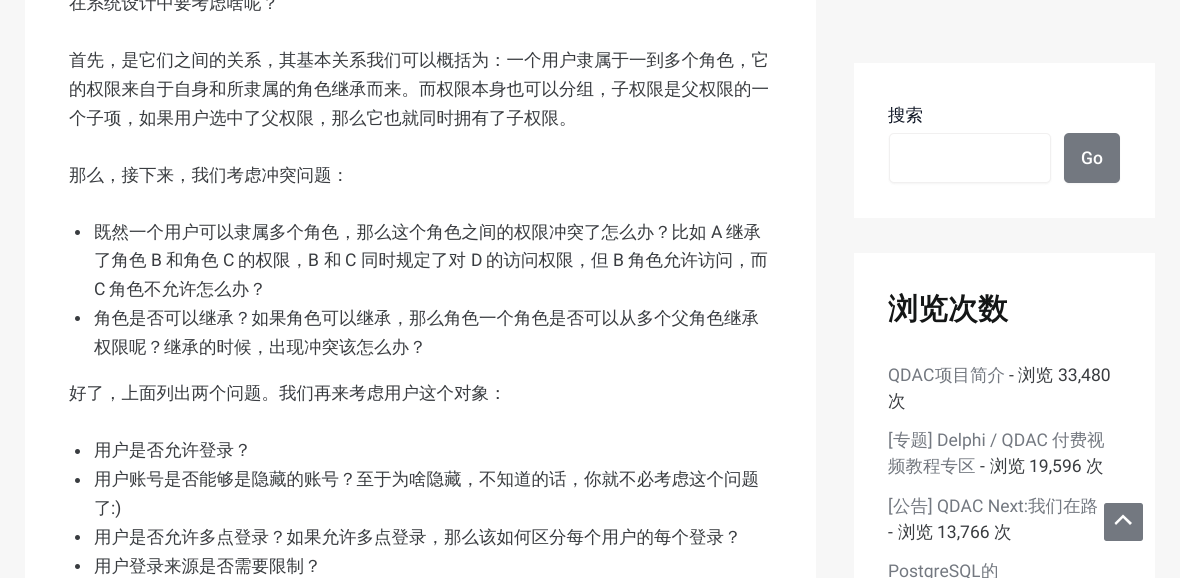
import math
import cairo


def round_path(ctx, x, y, w, h, r):
	ctx.new_sub_path()
	for i, (u, v) in enumerate([(x + w - r, y + h - r), (x + r, y + h - r), (x + r, y + r), (x + w - r, y + r)]):
		ctx.arc(u, v, r, i * math.pi / 2, (i + 1) * math.pi / 2)
	ctx.close_path()

def blur_box(ctx, x, y, w, h, r, blur, alpha):
	ctx.push_group_with_content(cairo.CONTENT_ALPHA)
	ctx.set_operator(cairo.OPERATOR_SOURCE)
	for i in range(15, -16, -2):
		e = blur * i / 6
		if min(w, h) + 2 * e > 0:
			ctx.set_source_rgba(0, 0, 0, alpha * math.erfc((i - 1) / 8.5) / 2)
			round_path(ctx, x - e, y - e, w + 2 * e, h + 2 * e, max(0, min(r + e + blur * .6, min(w, h) / 2 + e)))
			ctx.fill()
	ctx.mask(ctx.pop_group())

def draw(ctx):
	ctx.set_source_rgb(0.965, 0.965, 0.965)
	ctx.paint()
	ctx.set_source_rgb(1, 1, 1)
	ctx.rectangle(25, 0, 791, 578)
	ctx.fill()
	ctx.select_font_face('WenQuanYi Zen Hei Medium')
	ctx.set_font_size(17.5)
	ctx.set_source_rgb(0.224, 0.235, 0.251)
	for x, y, s in [
		(69, 9, '在系统设计中要考虑啥呢？'),
		(69, 66, '首先，是它们之间的关系，其基本关系我们可以概括为：一个用户隶属于一到多个角色，它'),
		(69, 95, '的权限来自于自身和所隶属的角色继承而来。而权限本身也可以分组，子权限是父权限的一'),
		(69, 124, '个子项，如果用户选中了父权限，那么它也就同时拥有了子权限。'),
		(69, 181, '那么，接下来，我们考虑冲突问题：'),
	]:
		ctx.move_to(x, y)
		ctx.show_text(s)
	ctx.new_path()
	ctx.arc(77.5, 232.5, 2.5, 0, 2 * math.pi)
	ctx.fill()
	ctx.move_to(94, 238)
	ctx.show_text('既然一个用户可以隶属多个角色，那么这个角色之间的权限冲突了怎么办？比如')
	ctx.select_font_face('Roboto')
	ctx.move_to(711, 238)
	ctx.show_text('A')
	ctx.select_font_face('WenQuanYi Zen Hei Medium')
	ctx.move_to(726, 238)
	ctx.show_text('继承')
	ctx.move_to(94, 266)
	ctx.show_text('了角色')
	ctx.select_font_face('Roboto')
	ctx.move_to(151, 266)
	ctx.show_text('B')
	ctx.select_font_face('WenQuanYi Zen Hei Medium')
	ctx.move_to(166, 266)
	ctx.show_text('和角色')
	ctx.select_font_face('Roboto')
	ctx.move_to(223, 266)
	ctx.show_text('C')
	ctx.select_font_face('WenQuanYi Zen Hei Medium')
	ctx.move_to(238, 266)
	ctx.show_text('的权限，')
	ctx.select_font_face('Roboto')
	ctx.move_to(308, 266)
	ctx.show_text('B')
	ctx.select_font_face('WenQuanYi Zen Hei Medium')
	ctx.move_to(324, 266)
	ctx.show_text('和')
	ctx.select_font_face('Roboto')
	ctx.move_to(345, 266)
	ctx.show_text('C')
	ctx.select_font_face('WenQuanYi Zen Hei Medium')
	ctx.move_to(361, 266)
	ctx.show_text('同时规定了对')
	ctx.select_font_face('Roboto')
	ctx.move_to(471, 266)
	ctx.show_text('D')
	ctx.select_font_face('WenQuanYi Zen Hei Medium')
	ctx.move_to(486, 266)
	ctx.show_text('的访问权限，但')
	ctx.select_font_face('Roboto')
	ctx.move_to(613, 266)
	ctx.show_text('B')
	ctx.select_font_face('WenQuanYi Zen Hei Medium')
	ctx.move_to(628, 266)
	ctx.show_text('角色允许访问，而')
	ctx.select_font_face('Roboto')
	ctx.move_to(94, 295)
	ctx.show_text('C')
	ctx.select_font_face('WenQuanYi Zen Hei Medium')
	ctx.move_to(109, 295)
	ctx.show_text('角色不允许怎么办？')
	ctx.new_path()
	ctx.arc(77.5, 318.5, 2.5, 0, 2 * math.pi)
	ctx.fill()
	for x, y, s in [
		(94, 324, '角色是否可以继承？如果角色可以继承，那么角色一个角色是否可以从多个父角色继承'),
		(94, 353, '权限呢？继承的时候，出现冲突该怎么办？'),
		(69, 399, '好了，上面列出两个问题。我们再来考虑用户这个对象：'),
	]:
		ctx.move_to(x, y)
		ctx.show_text(s)
	ctx.new_path()
	ctx.arc(77.5, 451.5, 2.5, 0, 2 * math.pi)
	ctx.fill()
	ctx.move_to(94, 456)
	ctx.show_text('用户是否允许登录？')
	ctx.new_path()
	ctx.arc(77.5, 480.5, 2.5, 0, 2 * math.pi)
	ctx.fill()
	ctx.move_to(94, 485)
	ctx.show_text('用户账号是否能够是隐藏的账号？至于为啥隐藏，不知道的话，你就不必考虑这个问题')
	ctx.move_to(94, 514)
	ctx.show_text('了')
	ctx.select_font_face('Roboto')
	ctx.move_to(111, 514)
	ctx.show_text(':)')
	ctx.new_path()
	ctx.arc(77.5, 537.5, 2.5, 0, 2 * math.pi)
	ctx.fill()
	ctx.select_font_face('WenQuanYi Zen Hei Medium')
	ctx.move_to(94, 543)
	ctx.show_text('用户是否允许多点登录？如果允许多点登录，那么该如何区分每个用户的每个登录？')
	ctx.new_path()
	ctx.arc(77.5, 566.5, 2.5, 0, 2 * math.pi)
	ctx.fill()
	ctx.move_to(94, 572)
	ctx.show_text('用户登录来源是否需要限制？')
	ctx.set_source_rgb(1, 1, 1)
	ctx.rectangle(854, 63, 301, 155)
	ctx.fill()
	ctx.set_source_rgb(0.067, 0.094, 0.153)
	ctx.move_to(888, 121)
	ctx.show_text('搜索')
	ctx.set_source_rgb(0, 0, 0)
	blur_box(ctx, 889, 134, 162, 50, 5, 1, 0.05)
	ctx.set_source_rgb(1, 1, 1)
	round_path(ctx, 889.5, 133.5, 161, 49, 4.5)
	ctx.fill_preserve()
	ctx.set_source_rgb(0.945, 0.941, 0.941)
	ctx.set_line_width(1)
	ctx.stroke()
	ctx.set_source_rgb(0, 0, 0)
	blur_box(ctx, 1064, 134, 56, 50, 5, 1, 0.05)
	ctx.set_source_rgb(0.451, 0.471, 0.502)
	round_path(ctx, 1064, 133, 56, 50, 5)
	ctx.fill()
	ctx.select_font_face('Roboto Medium')
	ctx.set_source_rgb(1, 1, 1)
	ctx.move_to(1081, 164)
	ctx.show_text('Go')
	ctx.rectangle(854, 253, 301, 325)
	ctx.fill()
	ctx.select_font_face('WenQuanYi Zen Hei', cairo.FONT_SLANT_NORMAL, cairo.FONT_WEIGHT_BOLD)
	ctx.set_font_size(30)
	ctx.set_source_rgb(0.082, 0.086, 0.086)
	ctx.move_to(888, 319)
	ctx.show_text('浏览次数')
	ctx.select_font_face('Roboto')
	ctx.set_font_size(17.5)
	ctx.set_source_rgb(0.451, 0.471, 0.502)
	ctx.move_to(888, 381)
	ctx.show_text('QDAC')
	ctx.select_font_face('WenQuanYi Zen Hei Medium')
	ctx.move_to(935, 381)
	ctx.show_text('项目简介')
	ctx.select_font_face('Roboto')
	ctx.set_source_rgb(0.224, 0.235, 0.251)
	ctx.move_to(1009, 381)
	ctx.show_text('-')
	ctx.select_font_face('WenQuanYi Zen Hei Medium')
	ctx.move_to(1018, 381)
	ctx.show_text('浏览')
	ctx.select_font_face('Roboto')
	ctx.move_to(1058, 381)
	ctx.show_text('33,480')
	ctx.select_font_face('WenQuanYi Zen Hei Medium')
	ctx.move_to(888, 407)
	ctx.show_text('次')
	ctx.select_font_face('Roboto')
	ctx.set_source_rgb(0.451, 0.471, 0.502)
	ctx.move_to(888, 446)
	ctx.show_text('[')
	ctx.select_font_face('WenQuanYi Zen Hei Medium')
	ctx.move_to(893, 446)
	ctx.show_text('专题')
	ctx.select_font_face('Roboto')
	ctx.move_to(928, 446)
	ctx.show_text('] Delphi / QDAC')
	ctx.select_font_face('WenQuanYi Zen Hei Medium')
	ctx.move_to(1052, 446)
	ctx.show_text('付费视')
	ctx.move_to(888, 472)
	ctx.show_text('频教程专区')
	ctx.select_font_face('Roboto')
	ctx.set_source_rgb(0.224, 0.235, 0.251)
	ctx.move_to(980, 472)
	ctx.show_text('-')
	ctx.select_font_face('WenQuanYi Zen Hei Medium')
	ctx.move_to(990, 472)
	ctx.show_text('浏览')
	ctx.select_font_face('Roboto')
	ctx.move_to(1029, 472)
	ctx.show_text('19,596')
	ctx.select_font_face('WenQuanYi Zen Hei Medium')
	ctx.move_to(1086, 472)
	ctx.show_text('次')
	ctx.select_font_face('Roboto')
	ctx.set_source_rgb(0.451, 0.471, 0.502)
	ctx.move_to(888, 512)
	ctx.show_text('[')
	ctx.select_font_face('WenQuanYi Zen Hei Medium')
	ctx.move_to(893, 512)
	ctx.show_text('公告')
	ctx.select_font_face('Roboto')
	ctx.move_to(928, 512)
	ctx.show_text('] QDAC Next:')
	ctx.select_font_face('WenQuanYi Zen Hei Medium')
	ctx.move_to(1028, 512)
	ctx.show_text('我们在路')
	ctx.select_font_face('Roboto')
	ctx.set_source_rgb(0.224, 0.235, 0.251)
	ctx.move_to(888, 538)
	ctx.show_text('-')
	ctx.select_font_face('WenQuanYi Zen Hei Medium')
	ctx.move_to(898, 538)
	ctx.show_text('浏览')
	ctx.select_font_face('Roboto')
	ctx.move_to(937, 538)
	ctx.show_text('13,766')
	ctx.select_font_face('WenQuanYi Zen Hei Medium')
	ctx.move_to(994, 538)
	ctx.show_text('次')
	ctx.select_font_face('Roboto')
	ctx.set_source_rgb(0.451, 0.471, 0.502)
	ctx.move_to(888, 577)
	ctx.show_text('PostgreSQL')
	ctx.select_font_face('WenQuanYi Zen Hei Medium')
	ctx.move_to(981, 577)
	ctx.show_text('的')
	round_path(ctx, 1104, 503, 39, 38, 2.5)
	ctx.fill()
	ctx.set_source_rgb(1, 1, 1)
	ctx.new_path()
	ctx.move_to(1132, 523)
	ctx.line_to(1123, 514.5)
	ctx.line_to(1114.5, 523)
	ctx.line_to(1116, 525)
	ctx.line_to(1123, 518)
	ctx.line_to(1130, 525)
	ctx.close_path()
	ctx.fill()


surface = cairo.ImageSurface(cairo.FORMAT_RGB24, 1180, 578)
ctx = cairo.Context(surface)
options = cairo.FontOptions()
options.set_hint_metrics(cairo.HINT_METRICS_OFF)
options.set_hint_style(cairo.HINT_STYLE_NONE)
ctx.set_font_options(options)
ctx.set_miter_limit(4)
draw(ctx)
surface.write_to_png('image.png')
